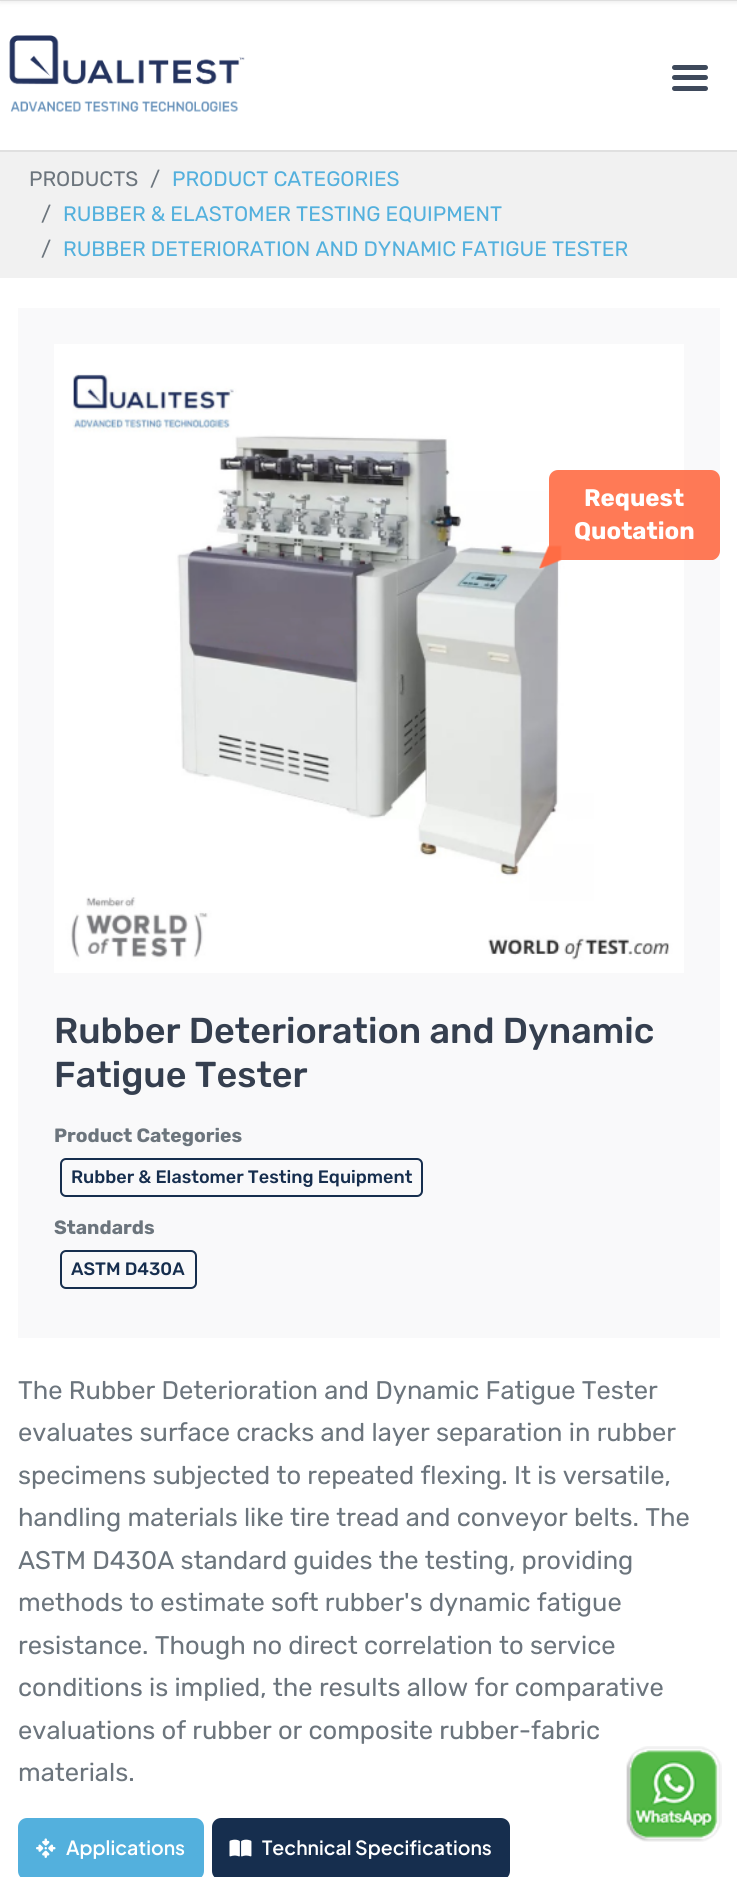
import math
import cairo


def round_path(ctx, x, y, w, h, r):
	ctx.new_sub_path()
	for i, (u, v) in enumerate([(x + w - r, y + h - r), (x + r, y + h - r), (x + r, y + r), (x + w - r, y + r)]):
		ctx.arc(u, v, r, i * math.pi / 2, (i + 1) * math.pi / 2)
	ctx.close_path()

def blur_box(ctx, x, y, w, h, r, blur, alpha):
	ctx.push_group_with_content(cairo.CONTENT_ALPHA)
	ctx.set_operator(cairo.OPERATOR_SOURCE)
	for i in range(15, -16, -2):
		e = blur * i / 6
		if min(w, h) + 2 * e > 0:
			ctx.set_source_rgba(0, 0, 0, alpha * math.erfc((i - 1) / 8.5) / 2)
			round_path(ctx, x - e, y - e, w + 2 * e, h + 2 * e, max(0, min(r + e + blur * .6, min(w, h) / 2 + e)))
			ctx.fill()
	ctx.mask(ctx.pop_group())

def paste(ctx, path, x, y, w, h):
	ctx.save()
	ctx.set_source_surface(cairo.ImageSurface.create_from_png(path), x, y)
	ctx.rectangle(x, y, w, h)
	ctx.fill()
	ctx.restore()

def draw(ctx):
	ctx.set_source_rgb(1, 1, 1)
	ctx.paint()
	ctx.set_source_rgb(0.376, 0.376, 0.376)
	blur_box(ctx, 0, -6, 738, 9, 0, 2, 0.1)
	ctx.set_source_rgb(0.871, 0.871, 0.871)
	ctx.rectangle(0, 0, 737, 1)
	ctx.fill()
	ctx.set_source_rgb(0.878, 0.878, 0.878)
	ctx.rectangle(0, 150, 737, 2)
	ctx.fill()
	paste(ctx, 'media/1.png', 9, 35, 236, 77)
	ctx.set_source_rgb(0.243, 0.286, 0.357)
	round_path(ctx, 672, 65, 36, 5, 2.5)
	ctx.fill()
	round_path(ctx, 672, 75, 36, 5, 2.5)
	ctx.fill()
	round_path(ctx, 672, 86, 36, 5, 2.5)
	ctx.fill()
	paste(ctx, 'media/2.png', 626, 1746, 96, 96)
	ctx.set_source_rgb(0.945, 0.945, 0.945)
	ctx.rectangle(0, 152, 737, 126)
	ctx.fill()
	ctx.select_font_face('Rubik')
	ctx.set_font_size(20.9)
	ctx.set_source_rgb(0.424, 0.459, 0.49)
	ctx.move_to(29, 186)
	ctx.show_text('PRODUCTS')
	ctx.move_to(150, 186)
	ctx.show_text('/')
	ctx.set_source_rgb(0.325, 0.69, 0.867)
	ctx.move_to(172, 186)
	ctx.show_text('PRODUCT CATEGORIES')
	ctx.set_source_rgb(0.424, 0.459, 0.49)
	ctx.move_to(41, 221)
	ctx.show_text('/')
	ctx.set_source_rgb(0.325, 0.69, 0.867)
	ctx.move_to(63, 221)
	ctx.show_text('RUBBER & ELASTOMER TESTING EQUIPMENT')
	ctx.set_source_rgb(0.424, 0.459, 0.49)
	ctx.move_to(41, 256)
	ctx.show_text('/')
	ctx.set_source_rgb(0.325, 0.69, 0.867)
	ctx.move_to(63, 256)
	ctx.show_text('RUBBER DETERIORATION AND DYNAMIC FATIGUE TESTER')
	ctx.set_source_rgb(0.973, 0.976, 0.98)
	ctx.rectangle(18, 308, 702, 1030)
	ctx.fill()
	paste(ctx, 'media/4.png', 54, 344, 630, 629)
	ctx.set_source_rgba(1, 0.424, 0.267, 0.9)
	ctx.new_path()
	ctx.move_to(558, 470)
	ctx.line_to(711, 470)
	ctx.curve_to(716, 470, 720, 474, 720, 479)
	ctx.line_to(720, 551)
	ctx.curve_to(720, 555, 717, 559, 713, 560)
	ctx.line_to(549, 560)
	ctx.line_to(549, 479)
	ctx.curve_to(549, 474, 553, 470, 558, 470)
	ctx.close_path()
	ctx.fill()
	paste(ctx, 'media/3.png', 539, 545, 23, 24)
	ctx.select_font_face('Rubik', cairo.FONT_SLANT_NORMAL, cairo.FONT_WEIGHT_BOLD)
	ctx.set_font_size(24)
	ctx.set_source_rgb(1, 1, 1)
	ctx.move_to(584, 506)
	ctx.show_text('Request')
	ctx.move_to(574, 539)
	ctx.show_text('Quotation')
	ctx.select_font_face('Rubik Medium')
	ctx.set_font_size(36)
	ctx.set_source_rgb(0.208, 0.247, 0.31)
	ctx.move_to(54, 1043)
	ctx.show_text('Rubber Deterioration and Dynamic')
	ctx.move_to(54, 1087)
	ctx.show_text('Fatigue Tester')
	ctx.select_font_face('Rubik', cairo.FONT_SLANT_NORMAL, cairo.FONT_WEIGHT_BOLD)
	ctx.set_font_size(19.25)
	ctx.set_source_rgb(0.424, 0.459, 0.49)
	ctx.move_to(54, 1142)
	ctx.show_text('Product Categories')
	round_path(ctx, 61, 1159, 361, 37, 5)
	ctx.set_source_rgb(0.086, 0.18, 0.306)
	ctx.stroke()
	ctx.select_font_face('Rubik Medium')
	ctx.set_font_size(18)
	ctx.move_to(71, 1183)
	ctx.show_text('Rubber & Elastomer Testing Equipment')
	ctx.select_font_face('Rubik', cairo.FONT_SLANT_NORMAL, cairo.FONT_WEIGHT_BOLD)
	ctx.set_font_size(19.25)
	ctx.set_source_rgb(0.424, 0.459, 0.49)
	ctx.move_to(54, 1234)
	ctx.show_text('Standards')
	round_path(ctx, 61, 1251, 135, 37, 5)
	ctx.set_source_rgb(0.086, 0.18, 0.306)
	ctx.stroke()
	ctx.select_font_face('Rubik Medium')
	ctx.set_font_size(18)
	ctx.move_to(71, 1275)
	ctx.show_text('ASTM D430A')
	ctx.select_font_face('Rubik')
	ctx.set_font_size(25.5)
	ctx.set_source_rgb(0.424, 0.459, 0.49)
	for x, y, s in [
		(18, 1399, 'The Rubber Deterioration and Dynamic Fatigue Tester'),
		(18, 1441, 'evaluates surface cracks and layer separation in rubber'),
		(18, 1484, 'specimens subjected to repeated flexing. It is versatile,'),
		(18, 1526, 'handling materials like tire tread and conveyor belts. The'),
		(18, 1569, 'ASTM D430A standard guides the testing, providing'),
		(18, 1611, 'methods to estimate soft rubber\'s dynamic fatigue'),
		(18, 1654, 'resistance. Though no direct correlation to service'),
		(18, 1696, 'conditions is implied, the results allow for comparative'),
		(18, 1739, 'evaluations of rubber or composite rubber-fabric'),
		(18, 1781, 'materials.'),
	]:
		ctx.move_to(x, y)
		ctx.show_text(s)
	ctx.set_source_rgb(0.325, 0.69, 0.867)
	round_path(ctx, 18, 1818, 186, 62, 9)
	ctx.fill()
	paste(ctx, 'media/5.png', 36, 1838, 20, 20)
	ctx.select_font_face('Plus Jakarta Sans SemiBold')
	ctx.set_font_size(19.5)
	ctx.set_source_rgb(1, 1, 1)
	ctx.move_to(66, 1855)
	ctx.show_text('Applications')
	ctx.set_source_rgb(0.086, 0.18, 0.306)
	round_path(ctx, 212, 1818, 298, 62, 9)
	ctx.fill()
	paste(ctx, 'media/6.png', 229, 1839, 23, 18)
	ctx.set_source_rgb(1, 1, 1)
	ctx.move_to(262, 1855)
	ctx.show_text('Technical Specifications')


surface = cairo.ImageSurface(cairo.FORMAT_RGB24, 737, 1877)
ctx = cairo.Context(surface)
options = cairo.FontOptions()
options.set_hint_metrics(cairo.HINT_METRICS_OFF)
options.set_hint_style(cairo.HINT_STYLE_NONE)
ctx.set_font_options(options)
ctx.set_miter_limit(4)
draw(ctx)
surface.write_to_png('image.png')
